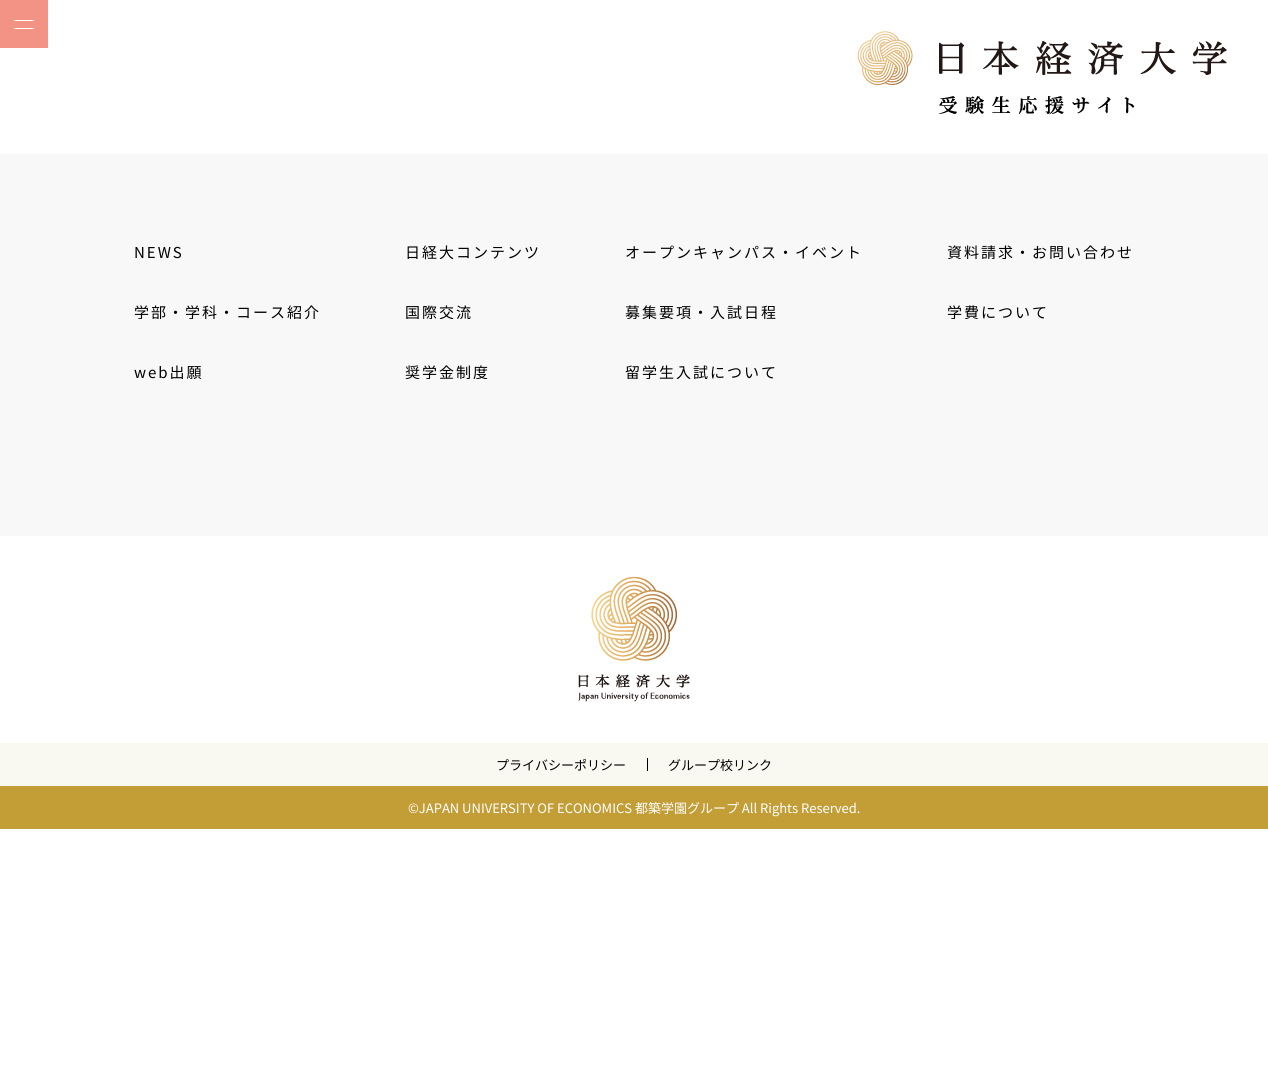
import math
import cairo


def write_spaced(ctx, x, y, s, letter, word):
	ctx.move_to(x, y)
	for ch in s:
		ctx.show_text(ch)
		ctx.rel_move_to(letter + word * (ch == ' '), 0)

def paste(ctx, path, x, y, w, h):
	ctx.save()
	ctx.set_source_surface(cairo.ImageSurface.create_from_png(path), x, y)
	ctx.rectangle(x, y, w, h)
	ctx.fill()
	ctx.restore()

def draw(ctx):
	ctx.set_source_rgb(1, 1, 1)
	ctx.paint()
	ctx.set_source_rgb(0.953, 0.576, 0.522)
	ctx.rectangle(0, 0, 48, 48)
	ctx.fill()
	ctx.set_source_rgb(1, 1, 1)
	ctx.rectangle(14, 20, 20, 1)
	ctx.rectangle(14, 28, 20, 1)
	ctx.fill()
	paste(ctx, 'media/1.png', 857, 31, 370, 83)
	ctx.set_source_rgb(0.969, 0.969, 0.969)
	ctx.rectangle(0, 154, 1268, 382)
	ctx.fill()
	ctx.select_font_face('Noto Sans JP')
	ctx.set_font_size(15)
	ctx.set_source_rgb(0, 0, 0)
	write_spaced(ctx, 134, 258, 'NEWS', 2, 0)
	ctx.save()
	ctx.rectangle(134, 304, 187, 15)
	ctx.clip()
	write_spaced(ctx, 134, 318, '学部・学科・コース紹介', 2, 0)
	ctx.restore()
	ctx.save()
	ctx.rectangle(134, 364, 187, 15)
	ctx.clip()
	write_spaced(ctx, 134, 378, 'web出願', 2, 0)
	ctx.restore()
	write_spaced(ctx, 405, 258, '日経大コンテンツ', 2, 0)
	ctx.save()
	ctx.rectangle(405, 304, 136, 15)
	ctx.clip()
	write_spaced(ctx, 405, 318, '国際交流', 2, 0)
	ctx.restore()
	ctx.save()
	ctx.rectangle(405, 364, 136, 15)
	ctx.clip()
	write_spaced(ctx, 405, 378, '奨学金制度', 2, 0)
	ctx.restore()
	write_spaced(ctx, 625, 258, 'オープンキャンパス・イベント', 2, 0)
	ctx.save()
	ctx.rectangle(625, 304, 238, 15)
	ctx.clip()
	write_spaced(ctx, 625, 318, '募集要項・入試日程', 2, 0)
	ctx.restore()
	ctx.save()
	ctx.rectangle(625, 364, 238, 15)
	ctx.clip()
	write_spaced(ctx, 625, 378, '留学生入試について', 2, 0)
	ctx.restore()
	ctx.save()
	ctx.rectangle(947, 244, 187, 15)
	ctx.clip()
	write_spaced(ctx, 947, 258, '資料請求・お問い合わせ', 2, 0)
	ctx.restore()
	ctx.save()
	ctx.rectangle(947, 304, 187, 15)
	ctx.clip()
	write_spaced(ctx, 947, 318, '学費について', 2, 0)
	ctx.restore()
	paste(ctx, 'media/2.png', 578, 576, 112, 126)
	ctx.set_source_rgb(0.976, 0.969, 0.945)
	ctx.rectangle(0, 743, 1268, 43)
	ctx.fill()
	ctx.set_font_size(13)
	ctx.set_source_rgb(0, 0, 0)
	ctx.move_to(496, 770)
	ctx.show_text('プライバシーポリシー')
	ctx.rectangle(647, 758, 1, 13)
	ctx.fill()
	ctx.move_to(668, 770)
	ctx.show_text('グループ校リンク')
	ctx.set_source_rgb(0.765, 0.62, 0.216)
	ctx.rectangle(0, 786, 1268, 43)
	ctx.fill()
	ctx.set_source_rgb(1, 1, 1)
	ctx.move_to(408, 813)
	ctx.show_text('©JAPAN UNIVERSITY OF ECONOMICS 都築学園グループ All Rights Reserved.')


surface = cairo.ImageSurface(cairo.FORMAT_RGB24, 1268, 1065)
ctx = cairo.Context(surface)
options = cairo.FontOptions()
options.set_hint_metrics(cairo.HINT_METRICS_OFF)
options.set_hint_style(cairo.HINT_STYLE_NONE)
ctx.set_font_options(options)
ctx.set_miter_limit(4)
draw(ctx)
surface.write_to_png('image.png')
